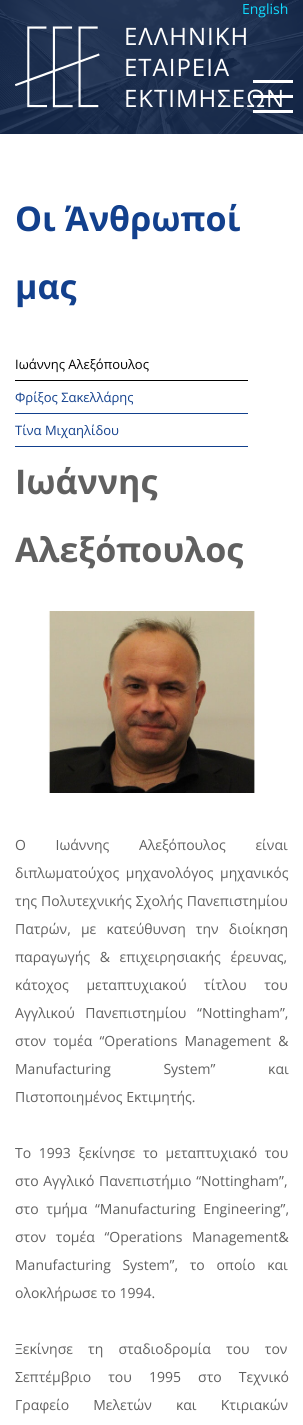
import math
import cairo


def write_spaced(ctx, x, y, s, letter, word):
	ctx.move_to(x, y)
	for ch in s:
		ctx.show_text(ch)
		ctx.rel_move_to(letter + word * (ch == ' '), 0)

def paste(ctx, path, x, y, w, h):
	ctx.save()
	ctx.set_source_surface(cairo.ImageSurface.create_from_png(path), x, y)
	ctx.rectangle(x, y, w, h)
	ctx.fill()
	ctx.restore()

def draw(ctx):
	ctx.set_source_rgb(1, 1, 1)
	ctx.paint()
	paste(ctx, 'media/1.png', 0, 0, 303, 134)
	ctx.select_font_face('Open Sans')
	ctx.set_font_size(14)
	ctx.set_source_rgb(0.063, 0.855, 1)
	ctx.move_to(242, 14)
	ctx.show_text('English')
	ctx.set_source_rgb(1, 1, 1)
	ctx.rectangle(253, 80, 40, 3)
	ctx.rectangle(253, 95, 40, 3)
	ctx.rectangle(253, 110, 40, 3)
	ctx.fill()
	paste(ctx, 'media/2.png', 15, 26, 85, 82)
	ctx.set_font_size(24)
	for x, y, s in [
		(124, 45, 'ΕΛΛΗΝΙΚΗ'),
		(124, 76, 'ΕΤΑΙΡΕΙΑ'),
		(124, 107, 'ΕΚΤΙΜΗΣΕΩΝ'),
	]:
		write_spaced(ctx, x, y, s, 1, 0)
	ctx.select_font_face('Open Sans', cairo.FONT_SLANT_NORMAL, cairo.FONT_WEIGHT_BOLD)
	ctx.set_font_size(34)
	ctx.set_source_rgb(0.071, 0.251, 0.553)
	ctx.move_to(15, 231)
	ctx.show_text('Οι Άνθρωποί')
	ctx.move_to(15, 299)
	ctx.show_text('μας')
	ctx.set_source_rgb(0, 0, 0)
	ctx.rectangle(15, 380, 233, 1)
	ctx.fill()
	ctx.select_font_face('Open Sans')
	ctx.set_font_size(13)
	ctx.move_to(15, 369)
	ctx.show_text('Ιωάννης Αλεξόπουλος')
	ctx.set_source_rgb(0.071, 0.251, 0.553)
	ctx.rectangle(15, 413, 233, 1)
	ctx.fill()
	ctx.move_to(15, 402)
	ctx.show_text('Φρίξος Σακελλάρης')
	ctx.rectangle(15, 446, 233, 1)
	ctx.fill()
	ctx.move_to(15, 435)
	ctx.show_text('Τίνα Μιχαηλίδου')
	ctx.select_font_face('Open Sans', cairo.FONT_SLANT_NORMAL, cairo.FONT_WEIGHT_BOLD)
	ctx.set_font_size(34)
	ctx.set_source_rgb(0.376, 0.376, 0.376)
	ctx.move_to(15, 494)
	ctx.show_text('Ιωάννης')
	ctx.move_to(15, 562)
	ctx.show_text('Αλεξόπουλος')
	paste(ctx, 'media/3.png', 48, 611, 207, 182)
	ctx.select_font_face('Open Sans')
	ctx.set_font_size(14)
	write_spaced(ctx, 15, 850, 'Ο Ιωάννης Αλεξόπουλος είναι', 0, 26)
	write_spaced(ctx, 15, 878, 'διπλωματούχος μηχανολόγος μηχανικός', 0, 3)
	write_spaced(ctx, 15, 906, 'της Πολυτεχνικής Σχολής Πανεπιστημίου', 0, 0.5)
	write_spaced(ctx, 15, 934, 'Πατρών, με κατεύθυνση την διοίκηση', 0, 6.5)
	write_spaced(ctx, 15, 962, 'παραγωγής & επιχειρησιακής έρευνας,', 0, 6)
	write_spaced(ctx, 15, 990, 'κάτοχος μεταπτυχιακού τίτλου του', 0, 14)
	write_spaced(ctx, 15, 1018, 'Αγγλικού Πανεπιστημίου “Nottingham”,', 0, 7)
	write_spaced(ctx, 15, 1046, 'στον τομέα “Operations Management &', 0, 3.5)
	write_spaced(ctx, 15, 1074, 'Manufacturing System” και', 0, 49)
	ctx.move_to(15, 1102)
	ctx.show_text('Πιστοποιημένος Εκτιμητής.')
	write_spaced(ctx, 15, 1158, 'Το 1993 ξεκίνησε το μεταπτυχιακό του', 0, 4)
	write_spaced(ctx, 15, 1186, 'στο Αγγλικό Πανεπιστήμιο “Nottingham”,', 0, 1)
	write_spaced(ctx, 15, 1214, 'στο τμήμα “Manufacturing Engineering”,', 0, 4)
	write_spaced(ctx, 15, 1242, 'στον τομέα “Operations Management&', 0, 6)
	write_spaced(ctx, 15, 1270, 'Manufacturing System”, το οποίο και', 0, 8)
	ctx.move_to(15, 1298)
	ctx.show_text('ολοκλήρωσε το 1994.')
	write_spaced(ctx, 15, 1354, 'Ξεκίνησε τη σταδιοδρομία του τον', 0, 11.5)
	write_spaced(ctx, 15, 1382, 'Σεπτέμβριο του 1995 στο Τεχνικό', 0, 13.5)
	write_spaced(ctx, 15, 1410, 'Γραφείο Μελετών και Κτιριακών', 0, 20.5)


surface = cairo.ImageSurface(cairo.FORMAT_RGB24, 303, 1425)
ctx = cairo.Context(surface)
options = cairo.FontOptions()
options.set_hint_metrics(cairo.HINT_METRICS_OFF)
options.set_hint_style(cairo.HINT_STYLE_NONE)
ctx.set_font_options(options)
ctx.set_miter_limit(4)
draw(ctx)
surface.write_to_png('image.png')
